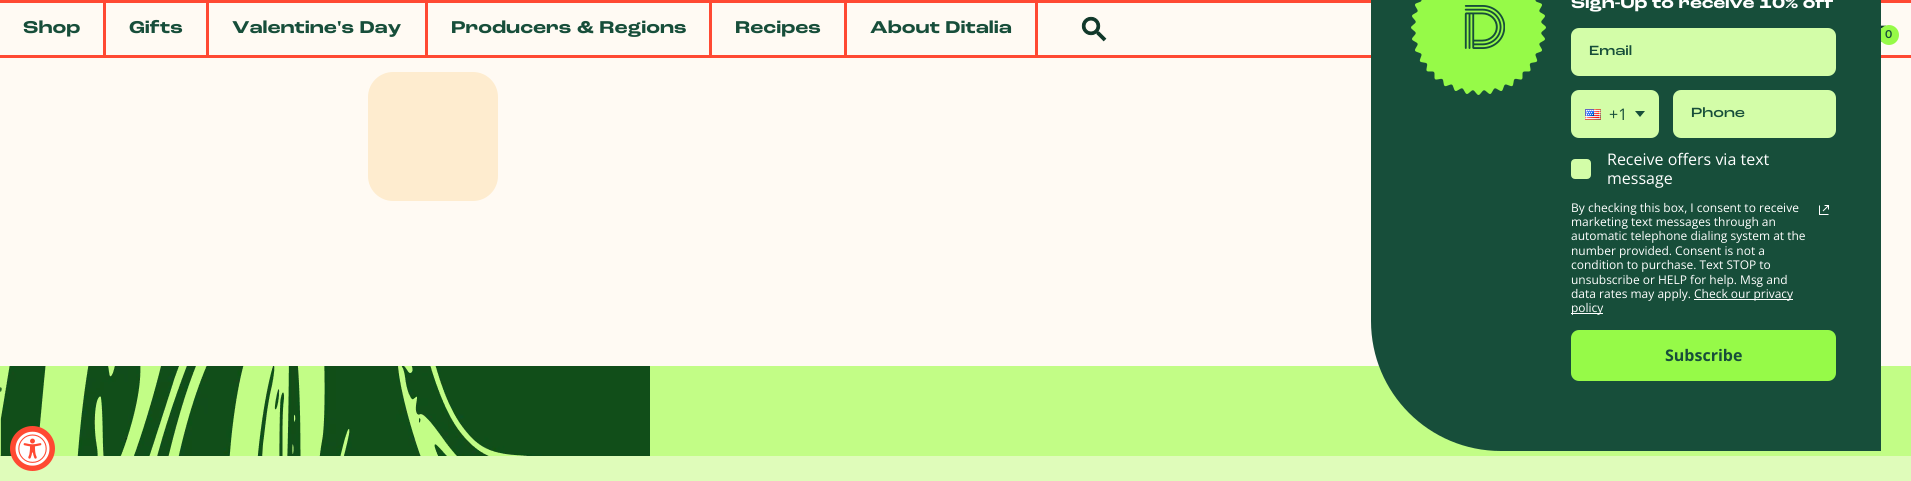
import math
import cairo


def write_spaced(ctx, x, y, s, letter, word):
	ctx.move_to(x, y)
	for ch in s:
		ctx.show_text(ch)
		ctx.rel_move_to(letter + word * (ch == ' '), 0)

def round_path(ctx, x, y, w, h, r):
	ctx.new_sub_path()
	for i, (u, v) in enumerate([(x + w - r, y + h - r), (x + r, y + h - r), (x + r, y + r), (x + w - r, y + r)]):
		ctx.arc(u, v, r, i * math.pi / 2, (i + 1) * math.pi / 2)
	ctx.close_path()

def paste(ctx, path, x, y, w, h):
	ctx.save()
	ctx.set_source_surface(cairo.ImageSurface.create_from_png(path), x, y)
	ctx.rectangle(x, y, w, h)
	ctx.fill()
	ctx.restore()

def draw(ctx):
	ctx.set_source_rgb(1, 0.98, 0.953)
	ctx.paint()
	ctx.set_source_rgb(1, 0.286, 0.196)
	ctx.rectangle(0, 0, 1911, 3)
	ctx.fill()
	ctx.rectangle(0, 55, 1911, 3)
	ctx.fill()
	paste(ctx, 'media/6.png', 1881, 25, 5, 17)
	ctx.set_source_rgb(0.588, 0.98, 0.282)
	ctx.arc(1889, 35, 10, 0, 2 * math.pi)
	ctx.fill()
	ctx.set_source_rgb(0.761, 0.992, 0.525)
	ctx.rectangle(0, 366, 1911, 90)
	ctx.fill()
	ctx.set_source_rgb(0.09, 0.306, 0.227)
	ctx.new_path()
	ctx.move_to(1371, -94)
	ctx.line_to(1881, -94)
	ctx.line_to(1881, 451)
	ctx.line_to(1501, 451)
	ctx.curve_to(1429, 451, 1371, 393, 1371, 321)
	ctx.close_path()
	ctx.fill()
	paste(ctx, 'media/1.png', 1411, 0, 135, 95)
	paste(ctx, 'media/2.png', 1464, 5, 41, 44)
	ctx.select_font_face('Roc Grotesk', cairo.FONT_SLANT_NORMAL, cairo.FONT_WEIGHT_BOLD)
	ctx.set_font_size(16.5)
	ctx.set_source_rgb(1, 1, 1)
	write_spaced(ctx, 1571, 8, 'Sign-Up to receive 10% off', -0.2, 0)
	ctx.set_source_rgb(0.827, 0.992, 0.659)
	round_path(ctx, 1572, 29, 263, 46, 7)
	ctx.fill_preserve()
	ctx.stroke()
	ctx.select_font_face('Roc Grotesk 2 Medium')
	ctx.set_font_size(14)
	ctx.set_source_rgb(0.09, 0.306, 0.227)
	ctx.move_to(1589, 55)
	ctx.show_text('Email')
	ctx.set_source_rgb(0.827, 0.992, 0.659)
	round_path(ctx, 1572, 91, 86, 46, 7)
	ctx.fill_preserve()
	ctx.stroke()
	paste(ctx, 'media/3.png', 1585, 109, 16, 11)
	ctx.select_font_face('Open Sans')
	ctx.set_font_size(16)
	ctx.set_source_rgb(0.09, 0.306, 0.227)
	ctx.move_to(1609, 120)
	ctx.show_text('+1')
	ctx.set_fill_rule(cairo.FILL_RULE_EVEN_ODD)
	ctx.new_path()
	ctx.move_to(1635, 111)
	ctx.line_to(1645, 111)
	ctx.line_to(1640, 117)
	ctx.close_path()
	ctx.fill()
	ctx.set_source_rgb(0.827, 0.992, 0.659)
	round_path(ctx, 1674, 91, 161, 46, 7)
	ctx.fill_preserve()
	ctx.stroke()
	ctx.select_font_face('Roc Grotesk 2 Medium')
	ctx.set_font_size(14)
	ctx.set_source_rgb(0.09, 0.306, 0.227)
	ctx.move_to(1691, 117)
	ctx.show_text('Phone')
	ctx.set_source_rgb(0.827, 0.992, 0.659)
	round_path(ctx, 1572, 160, 18, 18, 3)
	ctx.fill_preserve()
	ctx.stroke()
	ctx.select_font_face('Open Sans')
	ctx.set_font_size(16)
	ctx.set_source_rgb(1, 1, 1)
	ctx.move_to(1607, 165)
	ctx.show_text('Receive offers via text')
	ctx.move_to(1607, 184)
	ctx.show_text('message')
	ctx.set_font_size(12)
	for x, y, s in [
		(1571, 212, 'By checking this box, I consent to receive'),
		(1571, 226, 'marketing text messages through an'),
		(1571, 240, 'automatic telephone dialing system at the'),
		(1571, 255, 'number provided. Consent is not a'),
		(1571, 269, 'condition to purchase. Text STOP to'),
		(1571, 284, 'unsubscribe or HELP for help. Msg and'),
		(1571, 298, 'data rates may apply.'),
	]:
		ctx.move_to(x, y)
		ctx.show_text(s)
	ctx.rectangle(1694, 299, 99, 1)
	ctx.fill()
	ctx.move_to(1694, 298)
	ctx.show_text('Check our privacy')
	ctx.rectangle(1571, 313, 32, 1)
	ctx.fill()
	ctx.move_to(1571, 312)
	ctx.show_text('policy')
	paste(ctx, 'media/4.png', 1819, 205, 10, 10)
	ctx.set_source_rgb(0.588, 0.98, 0.282)
	round_path(ctx, 1571, 330, 265, 51, 8)
	ctx.fill()
	ctx.select_font_face('Open Sans', cairo.FONT_SLANT_NORMAL, cairo.FONT_WEIGHT_BOLD)
	ctx.set_font_size(16)
	ctx.set_source_rgb(0.09, 0.306, 0.227)
	ctx.move_to(1665, 361)
	ctx.show_text('Subscribe')
	ctx.set_source_rgb(1, 0.286, 0.196)
	ctx.rectangle(103, 3, 3, 52)
	ctx.fill()
	ctx.select_font_face('Roc Grotesk', cairo.FONT_SLANT_NORMAL, cairo.FONT_WEIGHT_BOLD)
	ctx.set_font_size(18)
	ctx.set_source_rgb(0.09, 0.306, 0.227)
	ctx.move_to(23, 33)
	ctx.show_text('Shop')
	ctx.set_source_rgb(1, 0.286, 0.196)
	ctx.rectangle(206, 3, 3, 52)
	ctx.fill()
	ctx.set_source_rgb(0.09, 0.306, 0.227)
	ctx.move_to(129, 33)
	ctx.show_text('Gifts')
	ctx.set_source_rgb(1, 0.286, 0.196)
	ctx.rectangle(425, 3, 3, 52)
	ctx.fill()
	ctx.set_source_rgb(0.09, 0.306, 0.227)
	ctx.move_to(232, 33)
	ctx.show_text('Valentine\'s Day')
	ctx.set_source_rgb(1, 0.286, 0.196)
	ctx.rectangle(709, 3, 3, 52)
	ctx.fill()
	ctx.set_source_rgb(0.09, 0.306, 0.227)
	ctx.move_to(451, 33)
	ctx.show_text('Producers & Regions')
	ctx.set_source_rgb(1, 0.286, 0.196)
	ctx.rectangle(844, 3, 3, 52)
	ctx.fill()
	ctx.set_source_rgb(0.09, 0.306, 0.227)
	ctx.move_to(735, 33)
	ctx.show_text('Recipes')
	ctx.set_source_rgb(1, 0.286, 0.196)
	ctx.rectangle(1035, 3, 3, 52)
	ctx.fill()
	ctx.set_source_rgb(0.09, 0.306, 0.227)
	ctx.move_to(870, 33)
	ctx.show_text('About Ditalia')
	paste(ctx, 'media/5.png', 1081, 16, 26, 26)
	ctx.select_font_face('Roc Grotesk Medium')
	ctx.set_font_size(12)
	ctx.move_to(1885, 38)
	ctx.show_text('0')
	ctx.set_source_rgb(0.996, 0.922, 0.812)
	round_path(ctx, 368, 72, 130, 129, 25)
	ctx.fill()
	paste(ctx, 'media/7.png', 0, 366, 650, 90)
	ctx.set_source_rgb(0.875, 0.988, 0.729)
	ctx.rectangle(0, 456, 1911, 25)
	ctx.fill()
	ctx.set_source_rgb(1, 0.286, 0.196)
	ctx.arc(32.5, 448.5, 22.5, 0, 2 * math.pi)
	ctx.fill()
	paste(ctx, 'media/8.png', 15, 431, 35, 35)


surface = cairo.ImageSurface(cairo.FORMAT_RGB24, 1911, 481)
ctx = cairo.Context(surface)
options = cairo.FontOptions()
options.set_hint_metrics(cairo.HINT_METRICS_OFF)
options.set_hint_style(cairo.HINT_STYLE_NONE)
ctx.set_font_options(options)
ctx.set_miter_limit(4)
draw(ctx)
surface.write_to_png('image.png')
